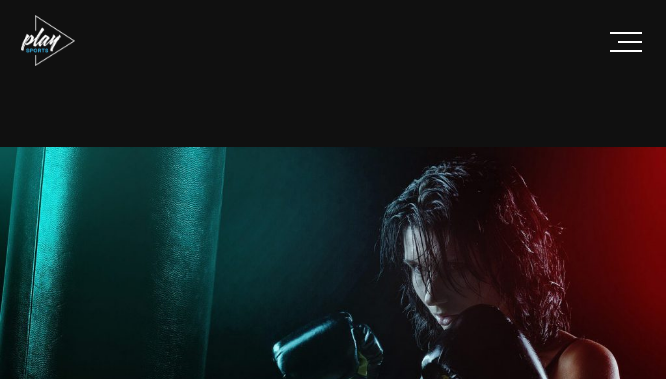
import math
import cairo


def paste(ctx, path, x, y, w, h):
	ctx.save()
	ctx.set_source_surface(cairo.ImageSurface.create_from_png(path), x, y)
	ctx.rectangle(x, y, w, h)
	ctx.fill()
	ctx.restore()

def draw(ctx):
	ctx.set_source_rgb(0.063, 0.063, 0.063)
	ctx.paint()
	paste(ctx, 'media/1.png', 21, 15, 54, 51)
	ctx.set_source_rgb(1, 1, 1)
	ctx.rectangle(610, 50, 32, 2)
	ctx.rectangle(610, 32, 32, 2)
	ctx.rectangle(618, 41, 24, 2)
	ctx.fill()
	paste(ctx, 'media/2.png', 0, 147, 666, 232)


surface = cairo.ImageSurface(cairo.FORMAT_RGB24, 666, 379)
ctx = cairo.Context(surface)
options = cairo.FontOptions()
options.set_hint_metrics(cairo.HINT_METRICS_OFF)
options.set_hint_style(cairo.HINT_STYLE_NONE)
ctx.set_font_options(options)
ctx.set_miter_limit(4)
draw(ctx)
surface.write_to_png('image.png')
